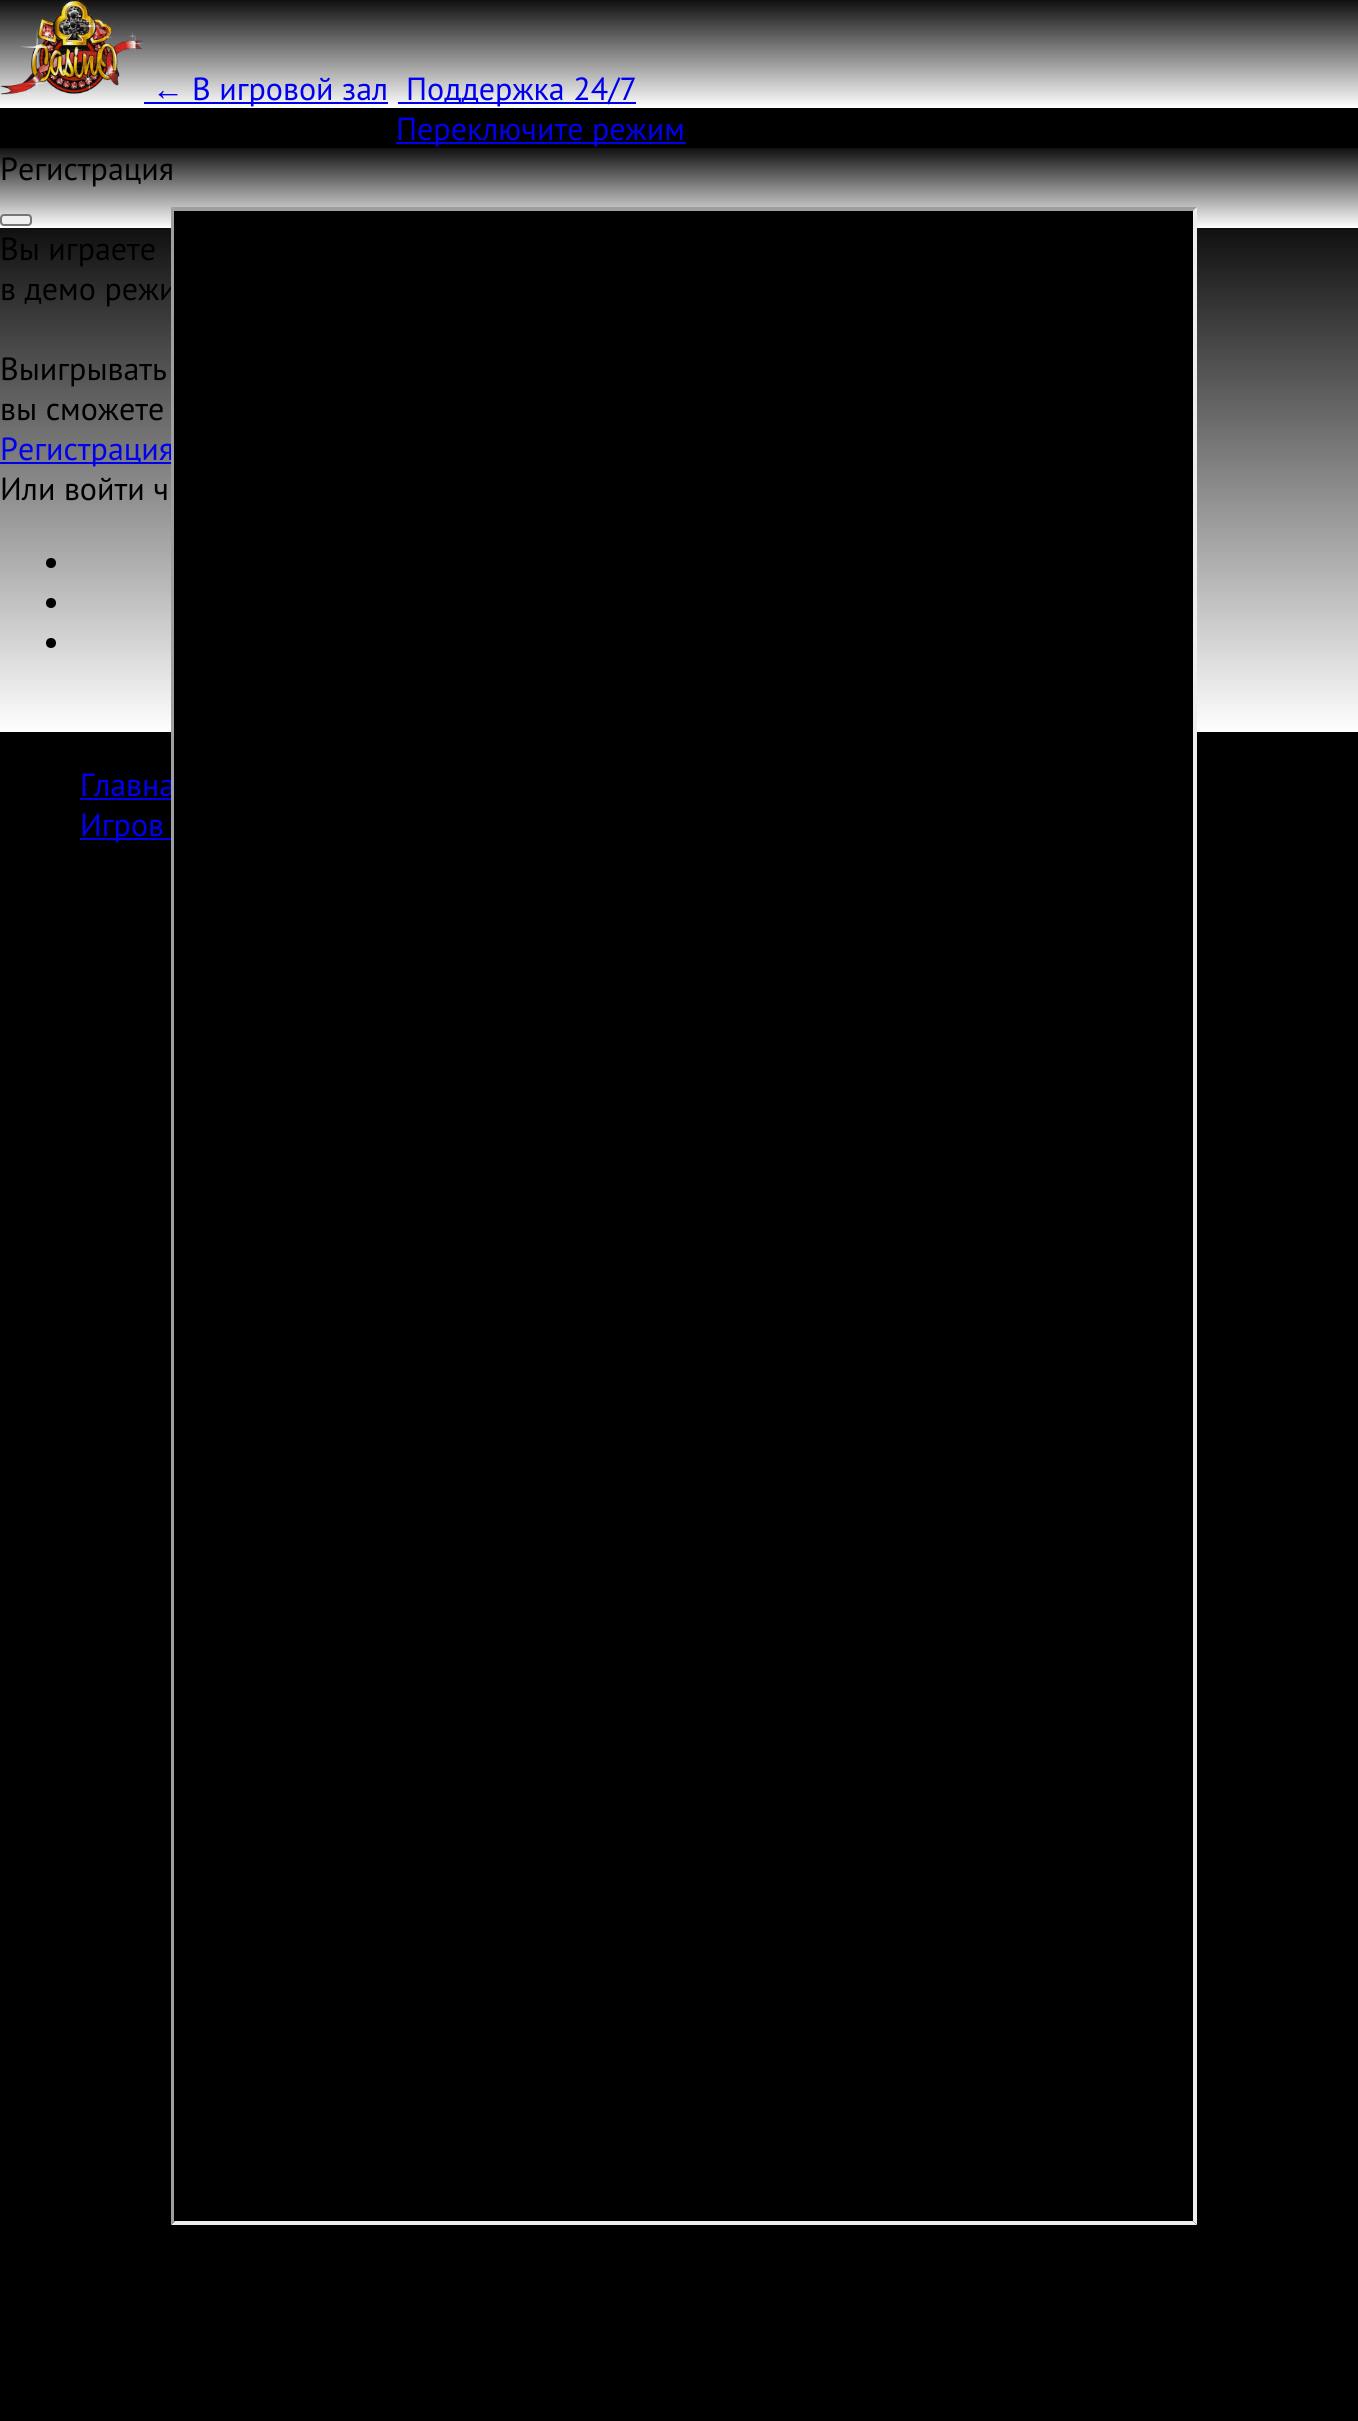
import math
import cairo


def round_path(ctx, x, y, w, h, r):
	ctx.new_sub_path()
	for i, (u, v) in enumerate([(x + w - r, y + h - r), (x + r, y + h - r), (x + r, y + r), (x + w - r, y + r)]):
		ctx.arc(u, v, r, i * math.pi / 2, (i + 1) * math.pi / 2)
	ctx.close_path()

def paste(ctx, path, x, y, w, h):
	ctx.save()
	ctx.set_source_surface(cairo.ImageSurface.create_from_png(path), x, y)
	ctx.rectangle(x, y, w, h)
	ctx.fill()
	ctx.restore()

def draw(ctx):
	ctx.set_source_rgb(0, 0, 0)
	ctx.paint()
	gradient = cairo.LinearGradient(679, 0, 679, 108)
	gradient.add_color_stop_rgba(0, 0.063, 0.063, 0.063, 1)
	gradient.add_color_stop_rgba(1, 1, 1, 1, 1)
	ctx.set_source(gradient)
	ctx.rectangle(0, 0, 1358, 108)
	ctx.fill()
	paste(ctx, 'media/1.png', 0, 0, 143, 96)
	ctx.select_font_face('Liberation Sans')
	ctx.set_font_size(32)
	ctx.set_source_rgb(0, 0, 0.933)
	ctx.move_to(152, 100)
	ctx.show_text('←')
	ctx.rectangle(144, 102, 244, 2)
	ctx.fill()
	ctx.select_font_face('PT Sans')
	ctx.move_to(192, 100)
	ctx.show_text('В игровой зал')
	ctx.rectangle(398, 102, 238, 2)
	ctx.fill()
	ctx.move_to(406, 100)
	ctx.show_text('Поддержка 24/7')
	ctx.rectangle(396, 142, 290, 2)
	ctx.fill()
	ctx.move_to(396, 140)
	ctx.show_text('Переключите режим')
	gradient = cairo.LinearGradient(679, 148, 679, 228)
	gradient.add_color_stop_rgba(0, 0.063, 0.063, 0.063, 1)
	gradient.add_color_stop_rgba(1, 1, 1, 1, 1)
	ctx.set_source(gradient)
	ctx.rectangle(0, 148, 1358, 80)
	ctx.fill()
	ctx.set_source_rgb(0.624, 0.624, 0.624)
	ctx.new_path()
	ctx.move_to(171, 207)
	ctx.line_to(1197, 207)
	ctx.line_to(1193, 211)
	ctx.line_to(175, 211)
	ctx.close_path()
	ctx.fill()
	gradient = cairo.LinearGradient(679, 228, 679, 732)
	gradient.add_color_stop_rgba(0, 0.063, 0.063, 0.063, 1)
	gradient.add_color_stop_rgba(1, 1, 1, 1, 1)
	ctx.set_source(gradient)
	ctx.rectangle(0, 228, 1358, 504)
	ctx.fill()
	ctx.set_source_rgb(0.933, 0.933, 0.933)
	ctx.new_path()
	ctx.move_to(1197, 207)
	ctx.line_to(1197, 2225)
	ctx.line_to(1193, 2221)
	ctx.line_to(1193, 211)
	ctx.close_path()
	ctx.fill()
	ctx.new_path()
	ctx.move_to(1197, 2225)
	ctx.line_to(171, 2225)
	ctx.line_to(175, 2221)
	ctx.line_to(1193, 2221)
	ctx.close_path()
	ctx.fill()
	ctx.set_source_rgb(0, 0, 0)
	ctx.move_to(0, 300)
	ctx.show_text('в демо режи')
	ctx.set_source_rgb(0, 0, 0.933)
	ctx.rectangle(0, 462, 174, 2)
	ctx.fill()
	ctx.move_to(0, 460)
	ctx.show_text('Регистрация')
	ctx.move_to(80, 796)
	ctx.show_text('Главна')
	ctx.set_source_rgb(0.624, 0.624, 0.624)
	ctx.new_path()
	ctx.move_to(171, 2225)
	ctx.line_to(171, 207)
	ctx.line_to(175, 211)
	ctx.line_to(175, 2221)
	ctx.close_path()
	ctx.fill()
	ctx.set_source_rgb(0, 0, 0)
	ctx.rectangle(174, 211, 1019, 2010)
	ctx.fill()
	ctx.move_to(0, 180)
	ctx.show_text('Регистрация')
	ctx.set_source_rgb(0.937, 0.937, 0.937)
	round_path(ctx, 1, 215, 30, 10, 3)
	ctx.fill_preserve()
	ctx.set_source_rgb(0.463, 0.463, 0.463)
	ctx.stroke()
	ctx.set_source_rgb(0, 0, 0)
	for x, y, s in [
		(0, 260, 'Вы играете'),
		(0, 380, 'Выигрывать'),
		(0, 420, 'вы сможете'),
		(0, 500, 'Или войти ч'),
	]:
		ctx.move_to(x, y)
		ctx.show_text(s)
	ctx.new_path()
	ctx.arc(51, 563, 5, 0, 2 * math.pi)
	ctx.fill()
	ctx.arc(51, 603, 5, 0, 2 * math.pi)
	ctx.fill()
	ctx.arc(51, 643, 5, 0, 2 * math.pi)
	ctx.fill()
	ctx.set_source_rgb(0, 0, 0.933)
	ctx.rectangle(80, 798, 91, 2)
	ctx.fill()
	ctx.rectangle(80, 838, 91, 2)
	ctx.fill()
	ctx.move_to(80, 836)
	ctx.show_text('Игров')


surface = cairo.ImageSurface(cairo.FORMAT_RGB24, 1358, 2421)
ctx = cairo.Context(surface)
options = cairo.FontOptions()
options.set_hint_metrics(cairo.HINT_METRICS_OFF)
options.set_hint_style(cairo.HINT_STYLE_NONE)
ctx.set_font_options(options)
ctx.set_miter_limit(4)
draw(ctx)
surface.write_to_png('image.png')
